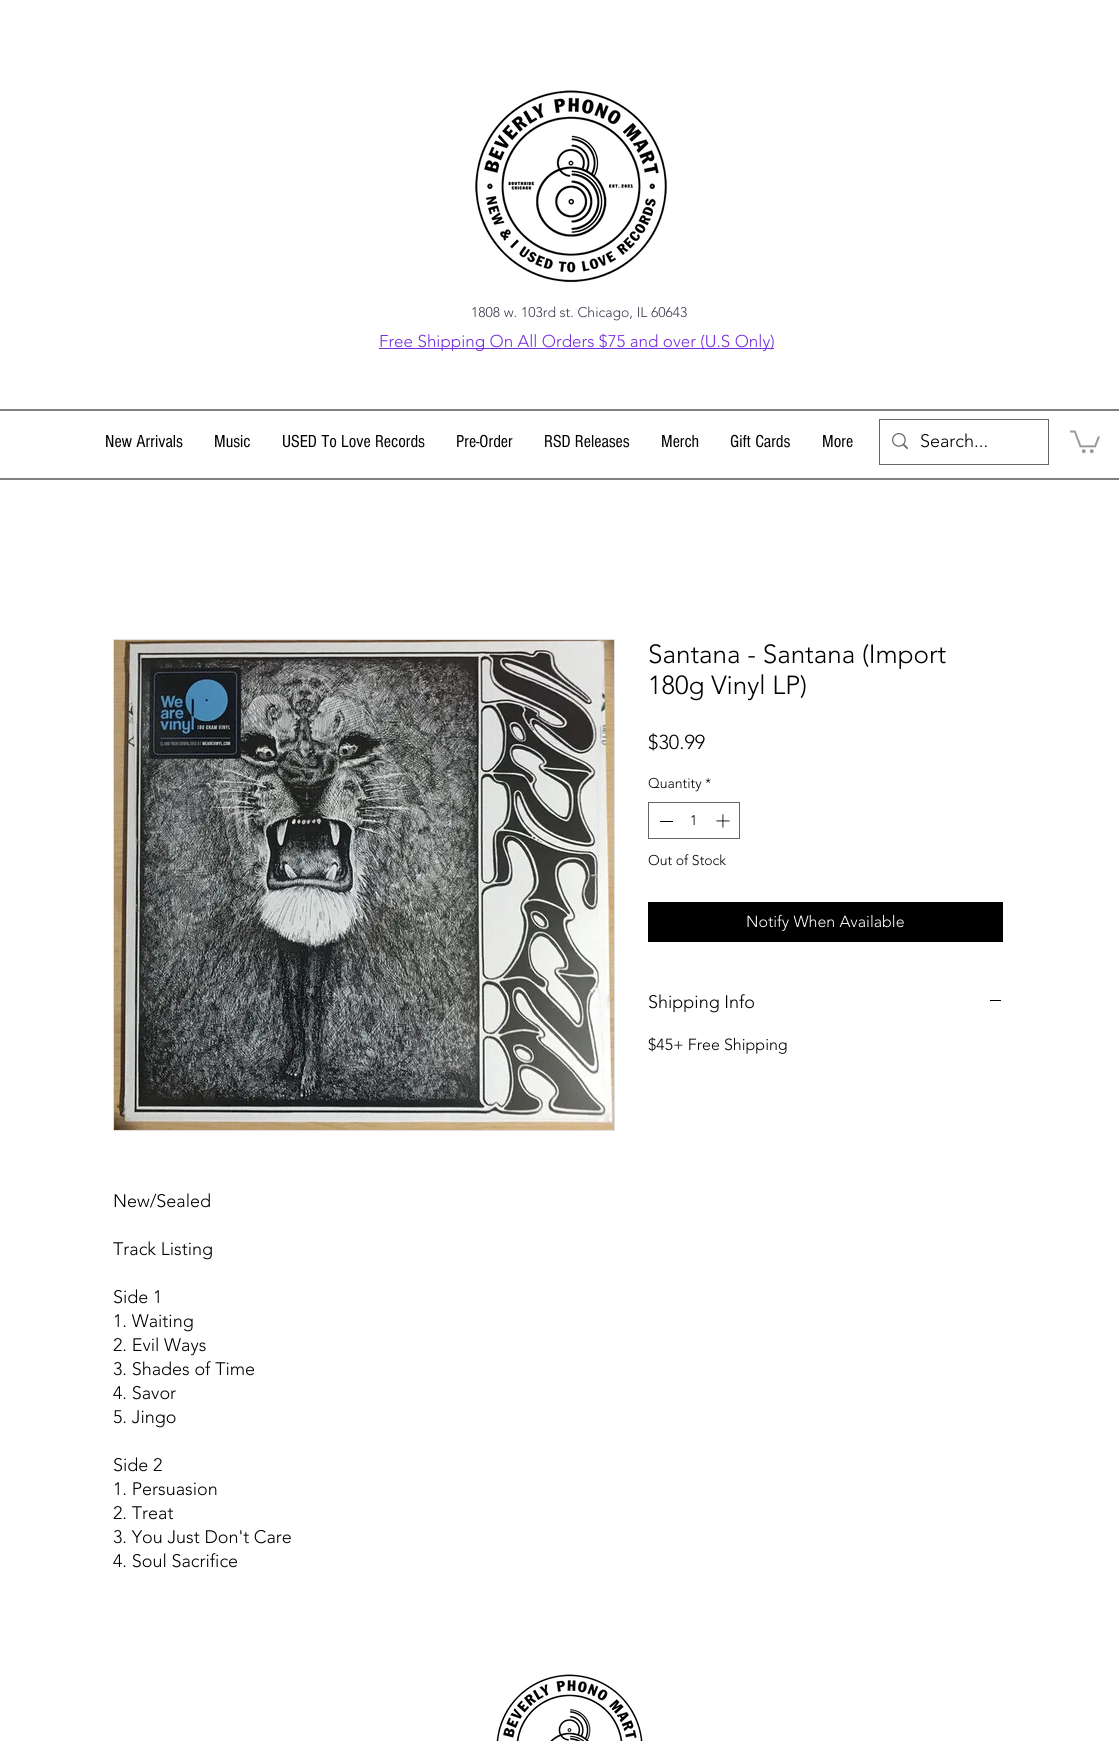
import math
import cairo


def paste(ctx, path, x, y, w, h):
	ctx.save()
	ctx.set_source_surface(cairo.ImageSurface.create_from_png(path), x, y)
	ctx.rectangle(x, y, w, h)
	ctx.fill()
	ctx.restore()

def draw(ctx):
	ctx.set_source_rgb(1, 1, 1)
	ctx.paint()
	paste(ctx, 'media/1.png', 475, 90, 192, 193)
	ctx.select_font_face('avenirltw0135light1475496 Light')
	ctx.set_font_size(14)
	ctx.set_source_rgb(0.216, 0.231, 0.302)
	ctx.move_to(471, 317)
	ctx.show_text('1808 w. 103rd st. Chicago, IL 60643')
	ctx.set_source_rgb(0.463, 0.176, 0.867)
	ctx.rectangle(379, 348, 395, 1)
	ctx.fill()
	ctx.set_font_size(17)
	ctx.move_to(379, 347)
	ctx.show_text('Free Shipping On All Orders $75 and over (U.S Only)')
	ctx.set_source_rgb(0.502, 0.502, 0.502)
	ctx.rectangle(0, 409, 1119, 2)
	ctx.fill()
	ctx.select_font_face('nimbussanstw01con')
	ctx.set_font_size(18)
	ctx.set_source_rgb(0, 0, 0)
	for x, y, s in [
		(105, 447, 'New Arrivals'),
		(214, 447, 'Music'),
		(282, 447, 'USED To Love Records'),
		(456, 447, 'Pre-Order'),
		(544, 447, 'RSD Releases'),
		(661, 447, 'Merch'),
		(730, 447, 'Gift Cards'),
		(822, 447, 'More'),
	]:
		ctx.move_to(x, y)
		ctx.show_text(s)
	ctx.rectangle(879.5, 419.5, 169, 45)
	ctx.set_source_rgb(0.4, 0.4, 0.4)
	ctx.set_line_width(1)
	ctx.stroke()
	paste(ctx, 'media/2.png', 892, 433, 16, 17)
	ctx.select_font_face('avenirltw0135light1475496 Light')
	ctx.set_source_rgb(0, 0, 0)
	ctx.move_to(920, 447)
	ctx.show_text('Search...')
	paste(ctx, 'media/3.png', 1070, 430, 30, 24)
	ctx.set_source_rgb(0.502, 0.502, 0.502)
	ctx.rectangle(0, 478, 1119, 2)
	ctx.fill()
	ctx.set_font_size(26)
	ctx.set_source_rgb(0, 0, 0)
	ctx.move_to(648, 663)
	ctx.show_text('Santana - Santana (Import')
	ctx.move_to(648, 694)
	ctx.show_text('180g Vinyl LP)')
	ctx.set_font_size(20)
	ctx.move_to(648, 749)
	ctx.show_text('$30.99')
	ctx.set_font_size(14)
	ctx.move_to(648, 788)
	ctx.show_text('Quantity')
	ctx.move_to(705, 788)
	ctx.show_text('*')
	ctx.rectangle(648.5, 802.5, 91, 36)
	ctx.set_source_rgb(0.4, 0.4, 0.4)
	ctx.stroke()
	ctx.set_source_rgb(0, 0, 0)
	ctx.rectangle(660, 821, 13, 1)
	ctx.fill()
	ctx.move_to(690, 825)
	ctx.show_text('1')
	paste(ctx, 'media/4.png', 716, 814, 14, 14)
	ctx.move_to(648, 865)
	ctx.show_text('Out of Stock')
	ctx.rectangle(648, 902, 355, 40)
	ctx.fill()
	ctx.set_font_size(16)
	ctx.set_source_rgb(1, 1, 1)
	ctx.move_to(746, 927)
	ctx.show_text('Notify When Available')
	ctx.set_font_size(18)
	ctx.set_source_rgb(0, 0, 0)
	ctx.move_to(648, 1008)
	ctx.show_text('Shipping Info')
	ctx.rectangle(990, 1000, 11, 1)
	ctx.fill()
	ctx.set_font_size(16)
	ctx.move_to(648, 1050)
	ctx.show_text('$45+ Free Shipping')
	ctx.rectangle(113.5, 639.5, 501, 491)
	ctx.set_source_rgb(0.878, 0.871, 0.871)
	ctx.stroke()
	paste(ctx, 'media/5.png', 114, 640, 500, 490)
	ctx.set_font_size(18)
	ctx.set_source_rgb(0, 0, 0)
	for x, y, s in [
		(113, 1207, 'New/Sealed'),
		(113, 1255, 'Track Listing'),
		(113, 1303, 'Side 1'),
		(113, 1327, '1. Waiting'),
		(113, 1351, '2. Evil Ways'),
		(113, 1375, '3. Shades of Time'),
		(113, 1399, '4. Savor'),
		(113, 1423, '5. Jingo'),
		(113, 1471, 'Side 2'),
		(113, 1495, '1. Persuasion'),
		(113, 1519, '2. Treat'),
		(113, 1543, '3. You Just Don\'t Care'),
		(113, 1567, '4. Soul Sacrifice'),
	]:
		ctx.move_to(x, y)
		ctx.show_text(s)
	paste(ctx, 'media/6.png', 496, 1674, 147, 67)


surface = cairo.ImageSurface(cairo.FORMAT_RGB24, 1119, 1741)
ctx = cairo.Context(surface)
options = cairo.FontOptions()
options.set_hint_metrics(cairo.HINT_METRICS_OFF)
options.set_hint_style(cairo.HINT_STYLE_NONE)
ctx.set_font_options(options)
ctx.set_miter_limit(4)
draw(ctx)
surface.write_to_png('image.png')
